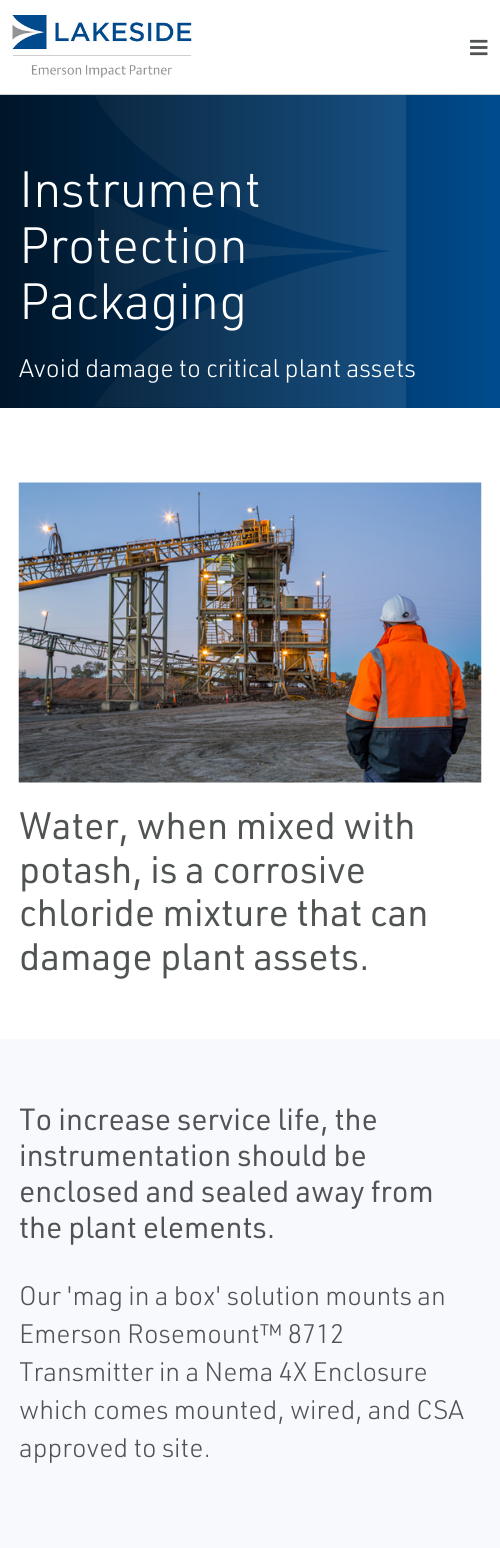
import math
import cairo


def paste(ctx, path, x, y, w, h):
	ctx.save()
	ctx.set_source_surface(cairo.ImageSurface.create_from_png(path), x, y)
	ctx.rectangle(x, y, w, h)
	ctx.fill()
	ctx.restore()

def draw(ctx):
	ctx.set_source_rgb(1, 1, 1)
	ctx.paint()
	ctx.set_source_rgb(0.792, 0.812, 0.816)
	ctx.rectangle(0, 94, 500, 1)
	ctx.fill()
	paste(ctx, 'media/1.png', 12, 15, 180, 63)
	paste(ctx, 'media/2.png', 470, 39, 18, 17)
	ctx.set_source_rgb(0, 0.294, 0.553)
	ctx.rectangle(0, 95, 500, 313)
	ctx.fill()
	ctx.set_source_rgb(0.102, 0.365, 0.596)
	ctx.set_fill_rule(cairo.FILL_RULE_EVEN_ODD)
	ctx.new_path()
	ctx.move_to(406, 95)
	ctx.line_to(94, 95)
	ctx.curve_to(141, 175, 269, 238, 390, 251)
	ctx.curve_to(268, 269, 154, 319, 94, 407)
	ctx.line_to(406, 408)
	ctx.close_path()
	ctx.fill()
	ctx.new_path()
	ctx.move_to(94, 321)
	ctx.curve_to(158, 256, 273, 255, 353, 252)
	ctx.line_to(353, 251)
	ctx.curve_to(274, 247, 152, 246, 94, 182)
	ctx.close_path()
	ctx.fill()
	gradient = cairo.LinearGradient(0, 251, 500, 251)
	gradient.add_color_stop_rgba(0, 0, 0, 0, 0.72)
	gradient.add_color_stop_rgba(1, 0, 0, 0, 0)
	ctx.set_source(gradient)
	ctx.rectangle(0, 95, 485, 313)
	ctx.fill()
	ctx.select_font_face('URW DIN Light')
	ctx.set_font_size(50)
	ctx.set_source_rgb(1, 1, 1)
	for x, y, s in [
		(19, 207, 'Instrument'),
		(19, 263, 'Protection'),
		(19, 319, 'Packaging'),
	]:
		ctx.move_to(x, y)
		ctx.show_text(s)
	ctx.set_font_size(25)
	ctx.move_to(19, 377)
	ctx.show_text('Avoid damage to critical plant assets')
	paste(ctx, 'media/3.png', 18, 482, 464, 301)
	ctx.select_font_face('URW DIN')
	ctx.set_font_size(37.5)
	ctx.set_source_rgb(0.314, 0.325, 0.329)
	for x, y, s in [
		(19, 839, 'Water, when mixed with'),
		(19, 883, 'potash, is a corrosive'),
		(19, 926, 'chloride mixture that can'),
		(19, 970, 'damage plant assets.'),
	]:
		ctx.move_to(x, y)
		ctx.show_text(s)
	ctx.set_source_rgb(0.965, 0.973, 0.992)
	ctx.rectangle(0, 1039, 500, 509)
	ctx.fill()
	ctx.set_font_size(30)
	ctx.set_source_rgb(0.314, 0.325, 0.329)
	for x, y, s in [
		(19, 1130, 'To increase service life, the'),
		(19, 1166, 'instrumentation should be'),
		(19, 1202, 'enclosed and sealed away from'),
		(19, 1238, 'the plant elements.'),
	]:
		ctx.move_to(x, y)
		ctx.show_text(s)
	ctx.select_font_face('URW DIN Light')
	ctx.set_font_size(26.25)
	for x, y, s in [
		(19, 1305, 'Our \'mag in a box\' solution mounts an'),
		(19, 1343, 'Emerson Rosemount™ 8712'),
		(19, 1381, 'Transmitter in a Nema 4X Enclosure'),
		(19, 1419, 'which comes mounted, wired, and CSA'),
		(19, 1457, 'approved to site.'),
	]:
		ctx.move_to(x, y)
		ctx.show_text(s)


surface = cairo.ImageSurface(cairo.FORMAT_RGB24, 500, 1548)
ctx = cairo.Context(surface)
options = cairo.FontOptions()
options.set_hint_metrics(cairo.HINT_METRICS_OFF)
options.set_hint_style(cairo.HINT_STYLE_NONE)
ctx.set_font_options(options)
ctx.set_miter_limit(4)
draw(ctx)
surface.write_to_png('image.png')
